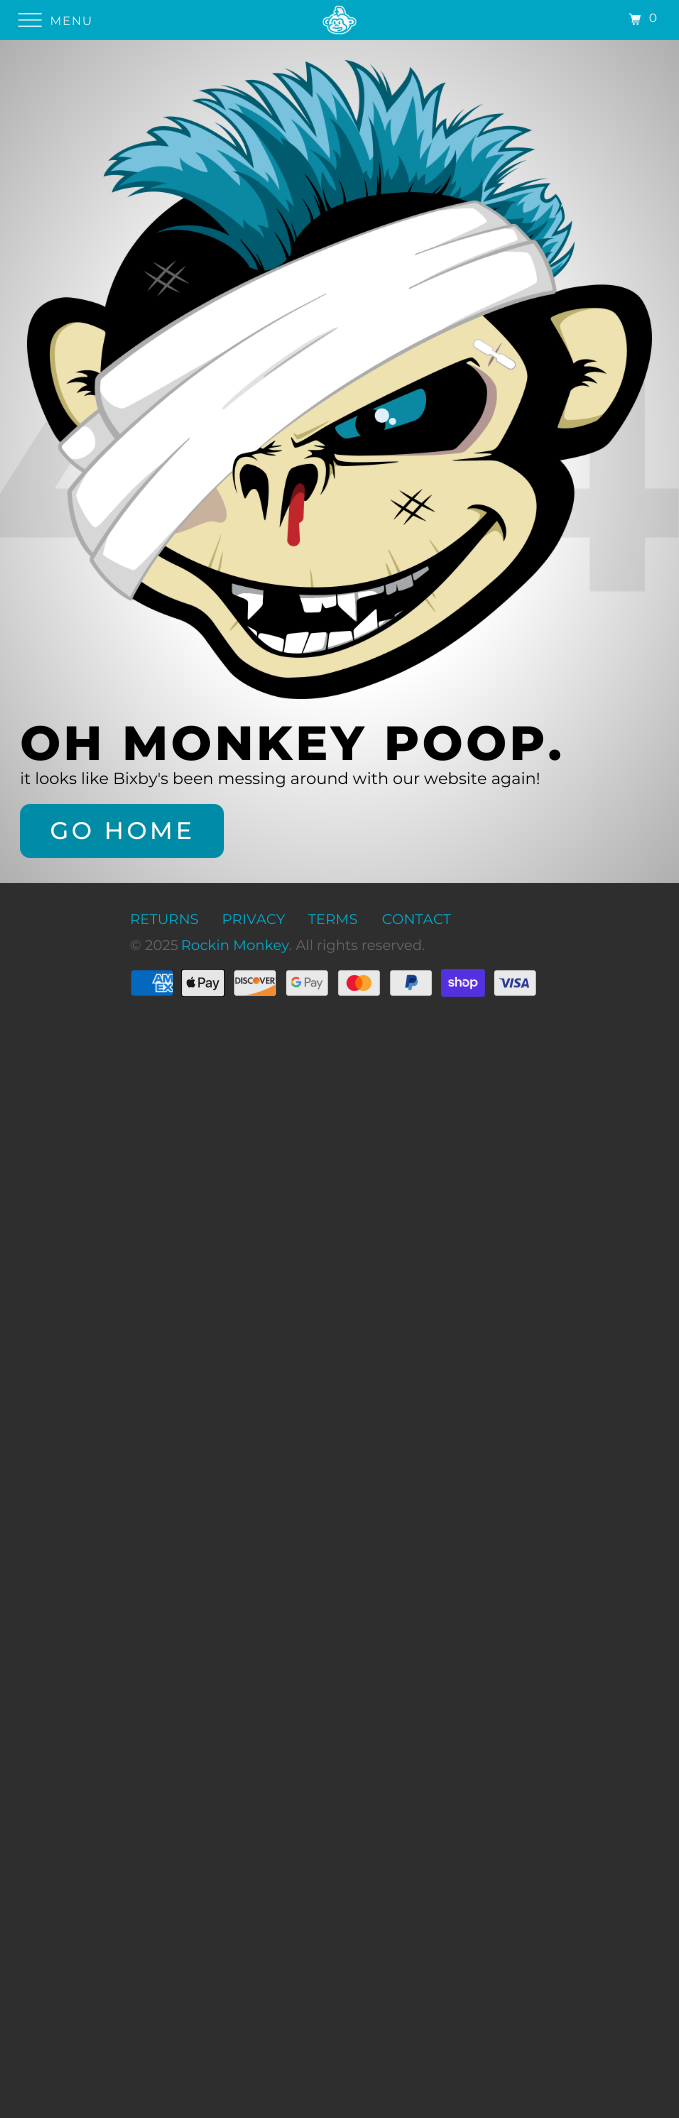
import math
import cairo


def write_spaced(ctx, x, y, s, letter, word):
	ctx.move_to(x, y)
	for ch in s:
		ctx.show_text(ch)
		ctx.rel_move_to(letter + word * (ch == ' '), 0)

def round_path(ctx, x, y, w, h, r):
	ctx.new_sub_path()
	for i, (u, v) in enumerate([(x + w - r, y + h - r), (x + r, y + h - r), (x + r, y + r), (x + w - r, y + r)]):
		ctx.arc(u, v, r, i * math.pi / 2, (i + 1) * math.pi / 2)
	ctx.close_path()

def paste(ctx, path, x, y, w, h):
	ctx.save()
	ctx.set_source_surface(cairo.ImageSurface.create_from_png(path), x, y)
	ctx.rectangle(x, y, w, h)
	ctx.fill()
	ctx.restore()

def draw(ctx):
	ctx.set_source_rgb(0.18, 0.18, 0.18)
	ctx.paint()
	ctx.set_source_rgb(0.008, 0.651, 0.773)
	ctx.rectangle(0, 0, 679, 40)
	ctx.fill()
	paste(ctx, 'media/1.png', 18, 13, 24, 14)
	ctx.select_font_face('Montserrat')
	ctx.set_font_size(12)
	ctx.set_source_rgb(0.961, 0.961, 0.961)
	write_spaced(ctx, 50, 25, 'MENU', 1, 0)
	paste(ctx, 'media/2.png', 322, 5, 35, 30)
	paste(ctx, 'media/3.png', 629, 13, 12, 12)
	write_spaced(ctx, 649, 22, '0', 1, 0)
	gradient = cairo.RadialGradient(0, 0, 0, 0, 0, 1)
	gradient.set_matrix(cairo.Matrix(1 / 480, 0, 0, 1 / 596, -1 * 340 / 480, -1 * 462 / 596))
	gradient.add_color_stop_rgba(0.37, 1, 1, 1, 1)
	gradient.add_color_stop_rgba(1, 0.686, 0.686, 0.686, 1)
	ctx.set_source(gradient)
	ctx.rectangle(0, 40, 679, 843)
	ctx.fill()
	paste(ctx, 'media/4.png', 0, 331, 679, 261)
	paste(ctx, 'media/5.png', 27, 60, 625, 639)
	ctx.select_font_face('Montserrat ExtraBold')
	ctx.set_font_size(48)
	ctx.set_source_rgb(0, 0, 0)
	write_spaced(ctx, 20, 760, 'OH MONKEY POOP.', 3, 0)
	ctx.select_font_face('Montserrat')
	ctx.set_font_size(16)
	ctx.move_to(20, 784)
	ctx.show_text('it looks like Bixby\'s been messing around with our website again!')
	ctx.set_source_rgb(0, 0.549, 0.655)
	round_path(ctx, 20, 804, 204, 54, 10)
	ctx.fill()
	ctx.select_font_face('Montserrat Medium')
	ctx.set_font_size(24)
	ctx.set_source_rgb(1, 1, 1)
	write_spaced(ctx, 50, 839, 'GO HOME', 3, 0)
	ctx.select_font_face('Montserrat')
	ctx.set_font_size(14)
	ctx.set_source_rgb(0, 0.675, 0.804)
	for x, y, s in [
		(130, 924, 'RETURNS'),
		(222, 924, 'PRIVACY'),
		(308, 924, 'TERMS'),
		(382, 924, 'CONTACT'),
	]:
		ctx.move_to(x, y)
		ctx.show_text(s)
	ctx.set_source_rgb(0.404, 0.404, 0.404)
	ctx.move_to(130, 950)
	ctx.show_text('© 2025')
	ctx.set_source_rgb(0, 0.675, 0.804)
	ctx.move_to(181, 950)
	ctx.show_text('Rockin Monkey')
	ctx.set_source_rgb(0.404, 0.404, 0.404)
	ctx.move_to(289, 950)
	ctx.show_text('. All rights reserved.')
	paste(ctx, 'media/6.png', 131, 970, 42, 26)
	paste(ctx, 'media/7.png', 181, 969, 44, 28)
	paste(ctx, 'media/8.png', 234, 970, 42, 26)
	paste(ctx, 'media/9.png', 286, 970, 42, 26)
	paste(ctx, 'media/10.png', 338, 970, 42, 26)
	paste(ctx, 'media/11.png', 390, 970, 42, 26)
	paste(ctx, 'media/12.png', 441, 969, 44, 28)
	paste(ctx, 'media/13.png', 494, 970, 42, 26)


surface = cairo.ImageSurface(cairo.FORMAT_RGB24, 679, 2118)
ctx = cairo.Context(surface)
options = cairo.FontOptions()
options.set_hint_metrics(cairo.HINT_METRICS_OFF)
options.set_hint_style(cairo.HINT_STYLE_NONE)
ctx.set_font_options(options)
ctx.set_miter_limit(4)
draw(ctx)
surface.write_to_png('image.png')
